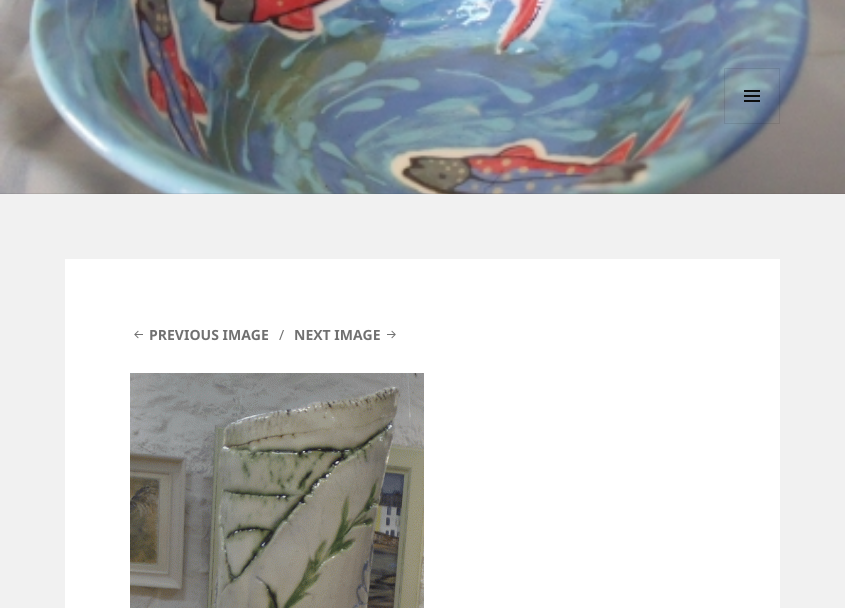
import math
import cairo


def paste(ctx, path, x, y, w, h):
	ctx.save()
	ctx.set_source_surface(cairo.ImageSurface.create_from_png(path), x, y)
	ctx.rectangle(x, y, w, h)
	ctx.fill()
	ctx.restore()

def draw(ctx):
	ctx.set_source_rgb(0.945, 0.945, 0.945)
	ctx.paint()
	paste(ctx, 'media/1.png', 0, 0, 845, 194)
	ctx.set_source_rgba(0.2, 0.2, 0.2, 0.1)
	ctx.rectangle(0, 193, 845, 1)
	ctx.fill()
	ctx.rectangle(724.5, 68.5, 55, 55)
	ctx.set_source_rgba(0.047, 0.047, 0.047, 0.1)
	ctx.set_line_width(1)
	ctx.stroke()
	paste(ctx, 'media/2.png', 744, 90, 16, 12)
	ctx.set_source_rgb(1, 1, 1)
	ctx.rectangle(65, 259, 715, 349)
	ctx.fill()
	paste(ctx, 'media/3.png', 134, 330, 9, 9)
	ctx.select_font_face('Noto Sans', cairo.FONT_SLANT_NORMAL, cairo.FONT_WEIGHT_BOLD)
	ctx.set_font_size(14)
	ctx.set_source_rgb(0.439, 0.439, 0.439)
	ctx.move_to(149, 340)
	ctx.show_text('PREVIOUS IMAGE')
	ctx.select_font_face('Noto Sans')
	ctx.move_to(279, 340)
	ctx.show_text('∕')
	ctx.select_font_face('Noto Sans', cairo.FONT_SLANT_NORMAL, cairo.FONT_WEIGHT_BOLD)
	ctx.move_to(294, 340)
	ctx.show_text('NEXT IMAGE')
	paste(ctx, 'media/4.png', 387, 330, 9, 9)
	paste(ctx, 'media/5.png', 130, 373, 294, 235)


surface = cairo.ImageSurface(cairo.FORMAT_RGB24, 845, 608)
ctx = cairo.Context(surface)
options = cairo.FontOptions()
options.set_hint_metrics(cairo.HINT_METRICS_OFF)
options.set_hint_style(cairo.HINT_STYLE_NONE)
ctx.set_font_options(options)
ctx.set_miter_limit(4)
draw(ctx)
surface.write_to_png('image.png')
